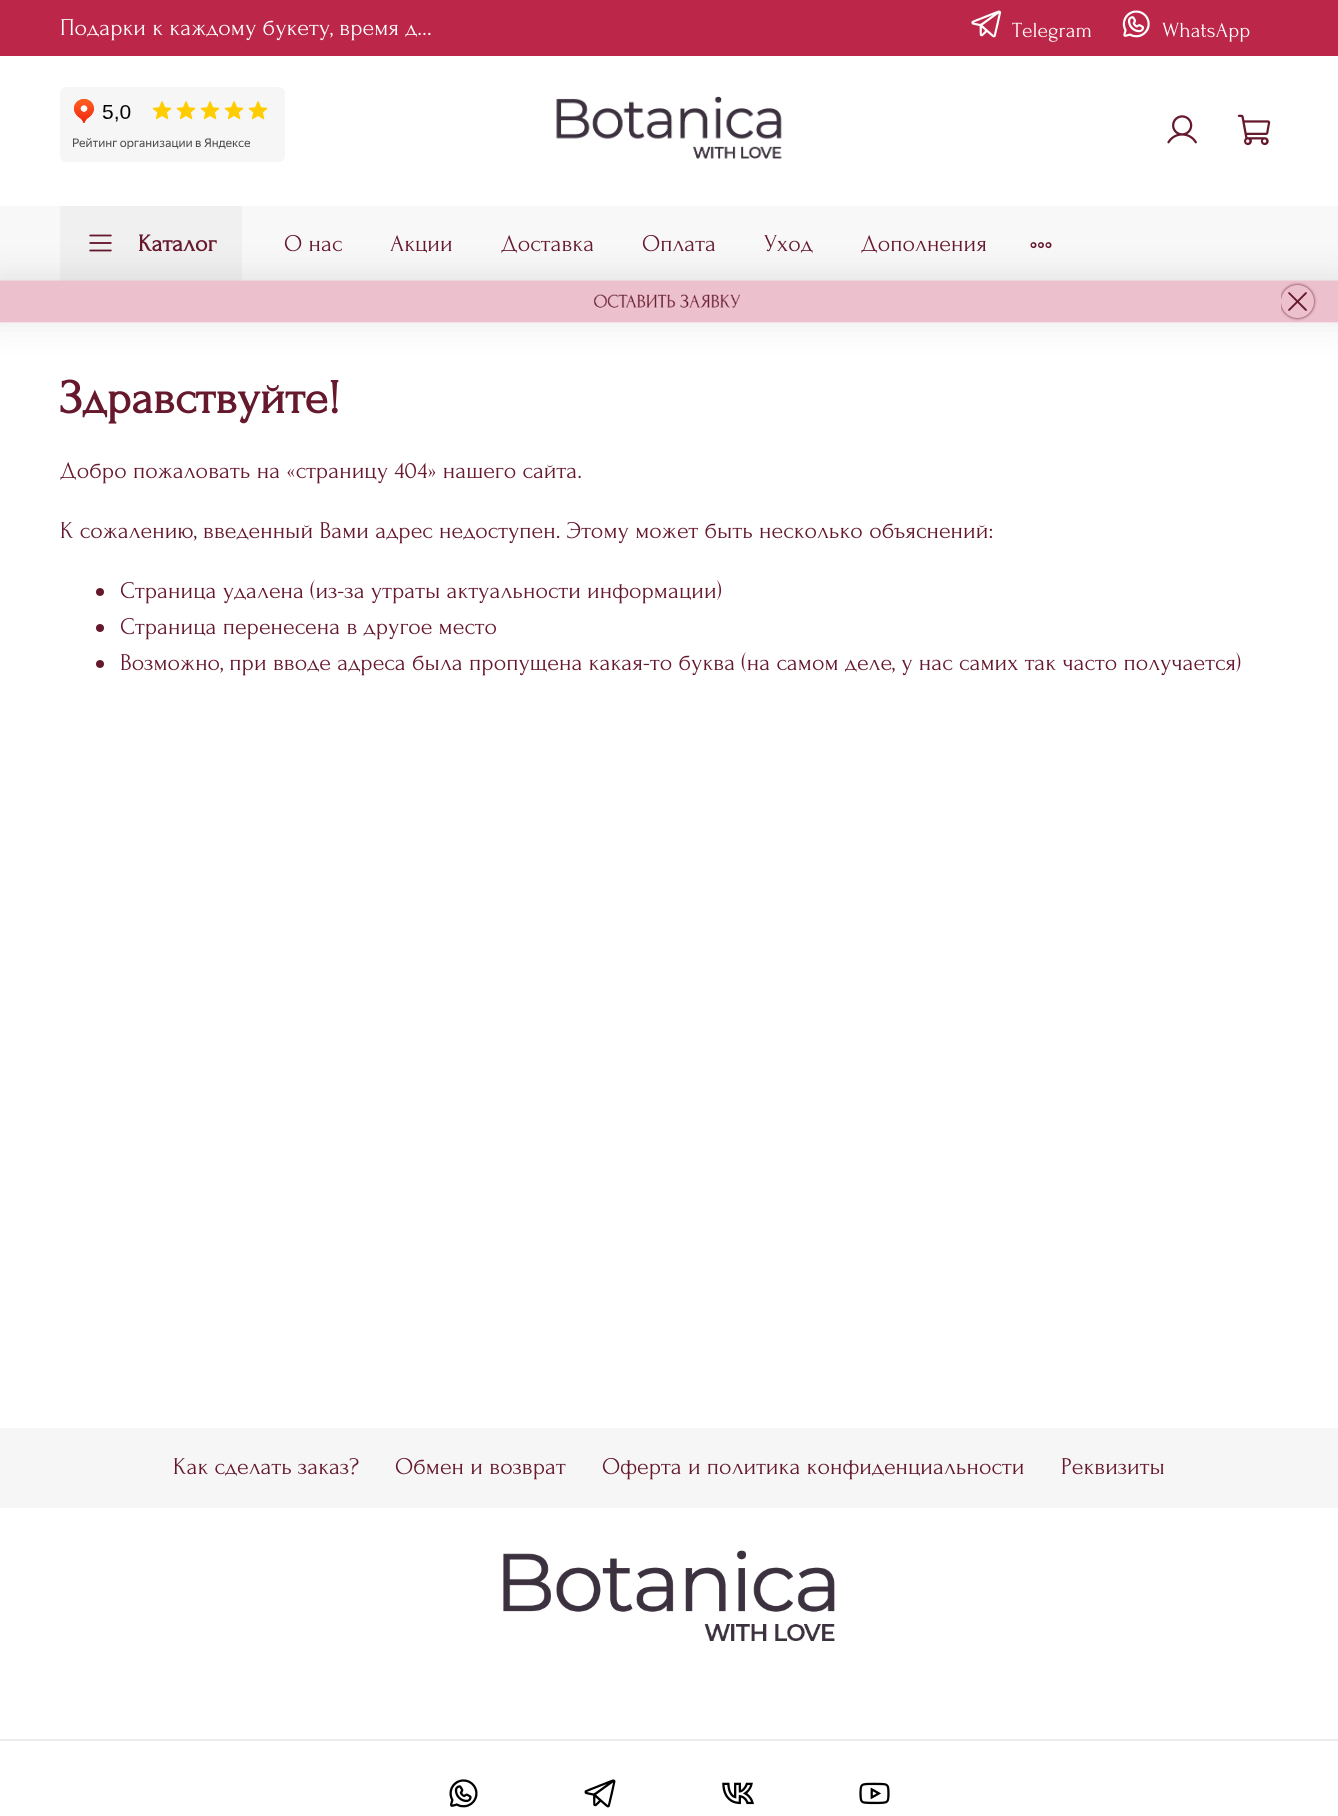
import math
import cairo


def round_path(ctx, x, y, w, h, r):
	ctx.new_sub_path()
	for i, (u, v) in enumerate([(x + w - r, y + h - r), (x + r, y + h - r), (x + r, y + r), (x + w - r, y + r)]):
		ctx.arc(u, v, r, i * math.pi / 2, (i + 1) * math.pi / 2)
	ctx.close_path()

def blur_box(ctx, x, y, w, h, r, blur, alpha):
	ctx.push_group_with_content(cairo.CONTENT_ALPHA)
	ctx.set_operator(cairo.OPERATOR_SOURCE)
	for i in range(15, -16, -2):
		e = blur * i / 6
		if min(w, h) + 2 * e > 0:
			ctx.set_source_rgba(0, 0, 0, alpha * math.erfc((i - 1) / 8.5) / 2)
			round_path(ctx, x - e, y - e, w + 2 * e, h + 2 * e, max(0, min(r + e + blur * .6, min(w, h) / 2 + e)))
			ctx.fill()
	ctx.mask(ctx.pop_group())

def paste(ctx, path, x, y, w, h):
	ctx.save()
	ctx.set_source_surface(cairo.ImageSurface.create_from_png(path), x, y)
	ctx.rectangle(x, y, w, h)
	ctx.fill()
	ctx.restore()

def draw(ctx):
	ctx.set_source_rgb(1, 1, 1)
	ctx.paint()
	ctx.set_source_rgb(0.733, 0.149, 0.286)
	ctx.rectangle(0, 0, 1338, 56)
	ctx.fill()
	ctx.select_font_face('Forum')
	ctx.set_font_size(24)
	ctx.set_source_rgb(1, 1, 1)
	ctx.move_to(60, 35)
	ctx.show_text('Подарки к каждому букету, время д…')
	paste(ctx, 'media/1.png', 971, 10, 31, 28)
	ctx.set_font_size(21.5)
	ctx.move_to(1012, 37)
	ctx.show_text('Telegram')
	paste(ctx, 'media/2.png', 1122, 10, 28, 28)
	ctx.move_to(1162, 37)
	ctx.show_text('WhatsApp')
	paste(ctx, 'media/3.png', 60, 87, 225, 75)
	paste(ctx, 'media/4.png', 556, 96, 226, 63)
	paste(ctx, 'media/5.png', 1167, 115, 30, 29)
	paste(ctx, 'media/6.png', 1237, 114, 34, 32)
	ctx.set_source_rgb(0.969, 0.969, 0.969)
	ctx.rectangle(0, 206, 1338, 75)
	ctx.fill()
	ctx.set_source_rgb(0.941, 0.941, 0.941)
	ctx.rectangle(60, 206, 182, 75)
	ctx.fill()
	paste(ctx, 'media/7.png', 89, 234, 23, 18)
	ctx.select_font_face('Forum', cairo.FONT_SLANT_NORMAL, cairo.FONT_WEIGHT_BOLD)
	ctx.set_font_size(24)
	ctx.set_source_rgb(0.4, 0.094, 0.176)
	ctx.move_to(138, 251)
	ctx.show_text('Каталог')
	ctx.select_font_face('Forum')
	for x, y, s in [
		(284, 251, 'О нас'),
		(390, 251, 'Акции'),
		(501, 251, 'Доставка'),
		(642, 251, 'Оплата'),
		(764, 251, 'Уход'),
		(861, 251, 'Дополнения'),
	]:
		ctx.move_to(x, y)
		ctx.show_text(s)
	paste(ctx, 'media/8.png', 1030, 242, 22, 7)
	ctx.set_source_rgb(0, 0, 0)
	blur_box(ctx, -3, 276, 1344, 48, 0, 17, 0.09)
	ctx.set_source_rgb(1, 1, 1)
	ctx.rectangle(0, 322, 1338, 1)
	ctx.fill()
	paste(ctx, 'media/10.png', 0, 280, 1338, 43)
	ctx.save()
	ctx.rectangle(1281, 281, 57, 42)
	ctx.clip()
	ctx.set_source_rgb(0.4, 0.094, 0.176)
	blur_box(ctx, 1281, 285, 33, 33, 16.5, 1.5, 1)
	ctx.restore()
	ctx.set_source_rgb(0.922, 0.757, 0.804)
	ctx.arc(1297.5, 301.5, 16.5, 0, 2 * math.pi)
	ctx.fill()
	paste(ctx, 'media/9.png', 1288, 292, 19, 19)
	ctx.select_font_face('Forum', cairo.FONT_SLANT_NORMAL, cairo.FONT_WEIGHT_BOLD)
	ctx.set_font_size(48)
	ctx.set_source_rgb(0.4, 0.094, 0.176)
	ctx.move_to(60, 413)
	ctx.show_text('Здравствуйте!')
	ctx.select_font_face('Forum')
	ctx.set_font_size(24)
	ctx.move_to(60, 478)
	ctx.show_text('Добро пожаловать на «страницу 404» нашего сайта.')
	ctx.move_to(60, 538)
	ctx.show_text('К сожалению, введенный Вами адрес недоступен. Этому может быть несколько объяснений:')
	ctx.new_path()
	ctx.arc(100, 592, 4, 0, 2 * math.pi)
	ctx.fill()
	ctx.move_to(120, 598)
	ctx.show_text('Страница удалена (из-за утраты актуальности информации)')
	ctx.new_path()
	ctx.arc(100, 628, 4, 0, 2 * math.pi)
	ctx.fill()
	ctx.move_to(120, 634)
	ctx.show_text('Страница перенесена в другое место')
	ctx.new_path()
	ctx.arc(100, 664, 4, 0, 2 * math.pi)
	ctx.fill()
	ctx.move_to(120, 670)
	ctx.show_text('Возможно, при вводе адреса была пропущена какая-то буква (на самом деле, у нас самих так часто получается)')
	ctx.set_source_rgb(0.961, 0.961, 0.961)
	ctx.rectangle(0, 1428, 1338, 80)
	ctx.fill()
	ctx.set_source_rgb(0.4, 0.094, 0.176)
	for x, y, s in [
		(173, 1474, 'Как сделать заказ?'),
		(395, 1474, 'Обмен и возврат'),
		(602, 1474, 'Оферта и политика конфиденциальности'),
		(1061, 1474, 'Реквизиты'),
	]:
		ctx.move_to(x, y)
		ctx.show_text(s)
	paste(ctx, 'media/11.png', 503, 1550, 332, 91)
	ctx.set_source_rgb(0.929, 0.929, 0.929)
	ctx.rectangle(0, 1739, 1338, 2)
	ctx.fill()
	paste(ctx, 'media/12.png', 449, 1779, 29, 29)
	paste(ctx, 'media/13.png', 584, 1779, 32, 29)
	paste(ctx, 'media/14.png', 722, 1782, 32, 23)
	paste(ctx, 'media/15.png', 859, 1782, 31, 23)


surface = cairo.ImageSurface(cairo.FORMAT_RGB24, 1338, 1816)
ctx = cairo.Context(surface)
options = cairo.FontOptions()
options.set_hint_metrics(cairo.HINT_METRICS_OFF)
options.set_hint_style(cairo.HINT_STYLE_NONE)
ctx.set_font_options(options)
ctx.set_miter_limit(4)
draw(ctx)
surface.write_to_png('image.png')
